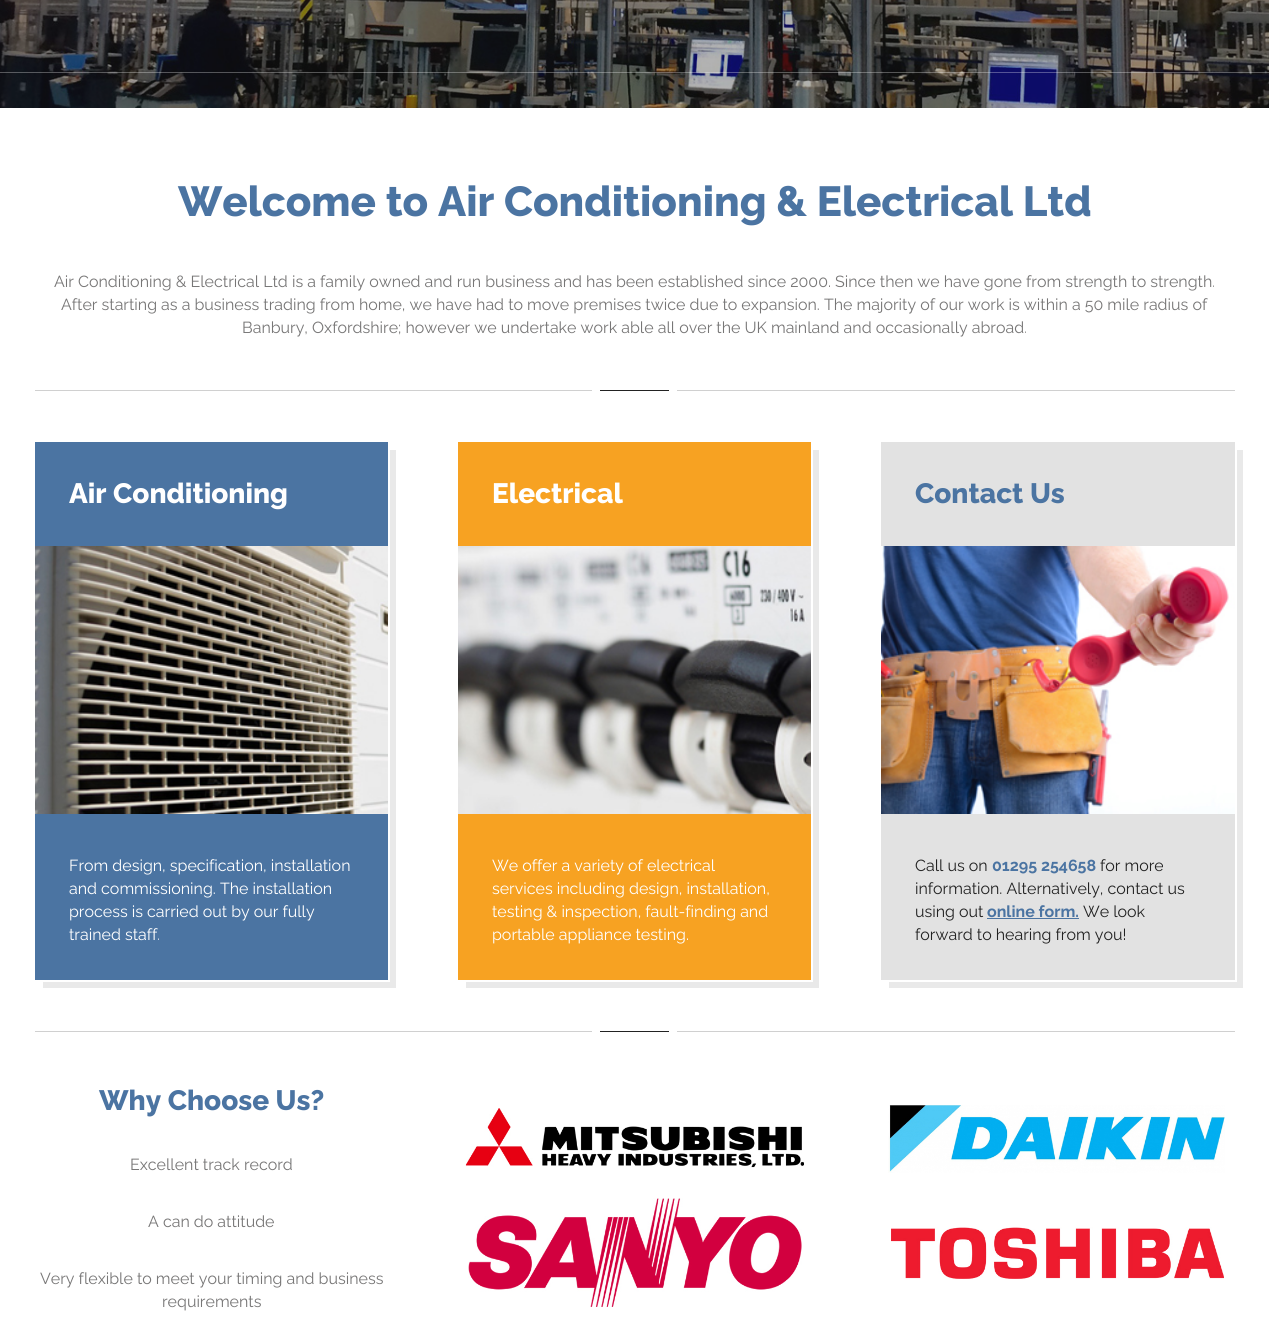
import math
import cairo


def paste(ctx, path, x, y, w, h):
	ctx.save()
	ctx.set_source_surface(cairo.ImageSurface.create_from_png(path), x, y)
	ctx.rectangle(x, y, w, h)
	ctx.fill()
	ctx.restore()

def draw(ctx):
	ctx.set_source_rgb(1, 1, 1)
	ctx.paint()
	paste(ctx, 'media/1.png', 0, 0, 1269, 108)
	ctx.set_source_rgba(1, 1, 1, 0.3)
	ctx.rectangle(0, 72, 1269, 1)
	ctx.fill()
	ctx.select_font_face('Raleway ExtraBold')
	ctx.set_font_size(42)
	ctx.set_source_rgb(0.294, 0.455, 0.635)
	ctx.move_to(178, 216)
	ctx.show_text('Welcome to Air Conditioning & Electrical Ltd')
	ctx.select_font_face('Raleway')
	ctx.set_font_size(16)
	ctx.set_source_rgb(0.467, 0.463, 0.463)
	for x, y, s in [
		(54, 287, 'Air Conditioning & Electrical Ltd is a family owned and run business and has been established since 2000. Since then we have gone from strength to strength.'),
		(61, 310, 'After starting as a business trading from home, we have had to move premises twice due to expansion. The majority of our work is within a 50 mile radius of'),
		(242, 333, 'Banbury, Oxfordshire; however we undertake work able all over the UK mainland and occasionally abroad.'),
	]:
		ctx.move_to(x, y)
		ctx.show_text(s)
	ctx.set_source_rgb(0.816, 0.816, 0.816)
	ctx.rectangle(35, 390, 1200, 1)
	ctx.fill()
	ctx.save()
	ctx.rectangle(35, 390, 1200, 1)
	ctx.clip()
	ctx.rectangle(596, 385, 77, 11)
	ctx.set_source_rgb(1, 1, 1)
	ctx.set_line_width(8)
	ctx.stroke()
	ctx.restore()
	ctx.set_source_rgb(0.133, 0.133, 0.133)
	ctx.rectangle(600, 390, 69, 1)
	ctx.fill()
	ctx.set_source_rgb(0.914, 0.914, 0.914)
	ctx.new_path()
	ctx.move_to(43, 980)
	ctx.line_to(43, 988)
	ctx.line_to(396, 988)
	ctx.line_to(396, 450)
	ctx.line_to(388, 450)
	ctx.line_to(388, 980)
	ctx.close_path()
	ctx.fill()
	ctx.rectangle(34, 441, 355, 540)
	ctx.set_source_rgb(1, 1, 1)
	ctx.stroke()
	ctx.set_source_rgb(0.294, 0.455, 0.635)
	ctx.rectangle(35, 442, 353, 538)
	ctx.fill()
	ctx.select_font_face('Raleway ExtraBold')
	ctx.set_font_size(28)
	ctx.set_source_rgb(1, 1, 1)
	ctx.move_to(69, 503)
	ctx.show_text('Air Conditioning')
	paste(ctx, 'media/2.png', 35, 546, 353, 268)
	ctx.select_font_face('Raleway')
	ctx.set_font_size(16)
	for x, y, s in [
		(69, 871, 'From design, specification, installation'),
		(69, 894, 'and commissioning. The installation'),
		(69, 917, 'process is carried out by our fully'),
		(69, 940, 'trained staff.'),
	]:
		ctx.move_to(x, y)
		ctx.show_text(s)
	ctx.set_source_rgb(0.914, 0.914, 0.914)
	ctx.new_path()
	ctx.move_to(466, 980)
	ctx.line_to(466, 988)
	ctx.line_to(819, 988)
	ctx.line_to(819, 450)
	ctx.line_to(811, 450)
	ctx.line_to(811, 980)
	ctx.close_path()
	ctx.fill()
	ctx.rectangle(457, 441, 355, 540)
	ctx.set_source_rgb(1, 1, 1)
	ctx.stroke()
	ctx.set_source_rgb(0.965, 0.635, 0.133)
	ctx.rectangle(458, 442, 353, 538)
	ctx.fill()
	ctx.select_font_face('Raleway ExtraBold')
	ctx.set_font_size(28)
	ctx.set_source_rgb(1, 1, 1)
	ctx.move_to(492, 503)
	ctx.show_text('Electrical')
	paste(ctx, 'media/3.png', 458, 546, 353, 268)
	ctx.select_font_face('Raleway')
	ctx.set_font_size(16)
	for x, y, s in [
		(492, 871, 'We offer a variety of electrical'),
		(492, 894, 'services including design, installation,'),
		(492, 917, 'testing & inspection, fault-finding and'),
		(492, 940, 'portable appliance testing.'),
	]:
		ctx.move_to(x, y)
		ctx.show_text(s)
	ctx.set_source_rgb(0.914, 0.914, 0.914)
	ctx.new_path()
	ctx.move_to(889, 980)
	ctx.line_to(889, 988)
	ctx.line_to(1243, 988)
	ctx.line_to(1243, 450)
	ctx.line_to(1235, 450)
	ctx.line_to(1235, 980)
	ctx.close_path()
	ctx.fill()
	ctx.rectangle(880, 441, 356, 540)
	ctx.set_source_rgb(1, 1, 1)
	ctx.stroke()
	ctx.set_source_rgb(0.886, 0.886, 0.886)
	ctx.rectangle(881, 442, 354, 538)
	ctx.fill()
	ctx.select_font_face('Raleway ExtraBold')
	ctx.set_font_size(28)
	ctx.set_source_rgb(0.294, 0.455, 0.635)
	ctx.move_to(915, 503)
	ctx.show_text('Contact Us')
	paste(ctx, 'media/4.png', 881, 546, 354, 268)
	ctx.select_font_face('Raleway')
	ctx.set_font_size(16)
	ctx.set_source_rgb(0.133, 0.133, 0.133)
	ctx.move_to(915, 871)
	ctx.show_text('Call us on')
	ctx.select_font_face('Raleway', cairo.FONT_SLANT_NORMAL, cairo.FONT_WEIGHT_BOLD)
	ctx.set_source_rgb(0.294, 0.455, 0.635)
	ctx.move_to(992, 871)
	ctx.show_text('01295 254658')
	ctx.select_font_face('Raleway')
	ctx.set_source_rgb(0.133, 0.133, 0.133)
	for x, y, s in [
		(1100, 871, 'for more'),
		(915, 894, 'information. Alternatively, contact us'),
		(915, 917, 'using out'),
	]:
		ctx.move_to(x, y)
		ctx.show_text(s)
	ctx.select_font_face('Raleway', cairo.FONT_SLANT_NORMAL, cairo.FONT_WEIGHT_BOLD)
	ctx.set_source_rgb(0.294, 0.455, 0.635)
	ctx.move_to(987, 917)
	ctx.show_text('online form.')
	ctx.rectangle(987, 918, 92, 1)
	ctx.fill()
	ctx.select_font_face('Raleway')
	ctx.set_source_rgb(0.133, 0.133, 0.133)
	ctx.move_to(1083, 917)
	ctx.show_text('We look')
	ctx.move_to(915, 940)
	ctx.show_text('forward to hearing from you!')
	ctx.set_source_rgb(0.816, 0.816, 0.816)
	ctx.rectangle(35, 1031, 1200, 1)
	ctx.fill()
	ctx.save()
	ctx.rectangle(35, 1031, 1200, 1)
	ctx.clip()
	ctx.rectangle(596, 1026, 77, 11)
	ctx.set_source_rgb(1, 1, 1)
	ctx.set_line_width(8)
	ctx.stroke()
	ctx.restore()
	ctx.set_source_rgb(0.133, 0.133, 0.133)
	ctx.rectangle(600, 1031, 69, 1)
	ctx.fill()
	ctx.select_font_face('Raleway ExtraBold')
	ctx.set_font_size(28)
	ctx.set_source_rgb(0.294, 0.455, 0.635)
	ctx.move_to(99, 1110)
	ctx.show_text('Why Choose Us?')
	ctx.select_font_face('Raleway')
	ctx.set_font_size(16)
	ctx.set_source_rgb(0.467, 0.463, 0.463)
	for x, y, s in [
		(130, 1170, 'Excellent track record'),
		(148, 1227, 'A can do attitude'),
		(40, 1284, 'Very flexible to meet your timing and business'),
		(162, 1307, 'requirements'),
	]:
		ctx.move_to(x, y)
		ctx.show_text(s)
	paste(ctx, 'media/5.png', 465, 1108, 339, 60)
	paste(ctx, 'media/6.png', 468, 1198, 334, 109)
	paste(ctx, 'media/7.png', 888, 1105, 337, 68)
	paste(ctx, 'media/8.png', 891, 1227, 333, 53)


surface = cairo.ImageSurface(cairo.FORMAT_RGB24, 1269, 1339)
ctx = cairo.Context(surface)
options = cairo.FontOptions()
options.set_hint_metrics(cairo.HINT_METRICS_OFF)
options.set_hint_style(cairo.HINT_STYLE_NONE)
ctx.set_font_options(options)
ctx.set_miter_limit(4)
draw(ctx)
surface.write_to_png('image.png')
